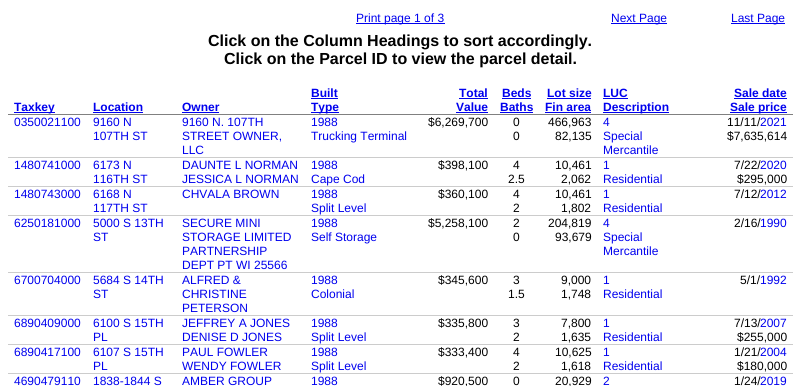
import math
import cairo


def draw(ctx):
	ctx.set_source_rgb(1, 1, 1)
	ctx.paint()
	ctx.set_source_rgb(0, 0, 0.933)
	ctx.rectangle(356, 23, 89, 1)
	ctx.fill()
	ctx.select_font_face('Liberation Sans')
	ctx.set_font_size(12)
	ctx.move_to(356, 22)
	ctx.show_text('Print page 1 of 3')
	ctx.rectangle(611, 23, 56, 1)
	ctx.fill()
	ctx.move_to(611, 22)
	ctx.show_text('Next Page')
	ctx.rectangle(731, 23, 54, 1)
	ctx.fill()
	ctx.move_to(731, 22)
	ctx.show_text('Last Page')
	ctx.select_font_face('Liberation Sans', cairo.FONT_SLANT_NORMAL, cairo.FONT_WEIGHT_BOLD)
	ctx.set_font_size(16)
	ctx.set_source_rgb(0, 0, 0)
	ctx.move_to(208, 46)
	ctx.show_text('Click on the Column Headings to sort accordingly.')
	ctx.move_to(224, 64)
	ctx.show_text('Click on the Parcel ID to view the parcel detail.')
	ctx.set_source_rgb(0.502, 0.502, 0.502)
	ctx.rectangle(8, 114, 785, 1)
	ctx.fill()
	ctx.set_source_rgb(0, 0, 0.933)
	ctx.rectangle(14, 112, 41, 1)
	ctx.fill()
	ctx.set_font_size(12)
	ctx.move_to(14, 111)
	ctx.show_text('Taxkey')
	ctx.move_to(93, 111)
	ctx.show_text('Location')
	ctx.rectangle(93, 112, 50, 1)
	ctx.fill()
	ctx.move_to(182, 111)
	ctx.show_text('Owner')
	ctx.rectangle(182, 112, 37, 1)
	ctx.fill()
	ctx.move_to(311, 97)
	ctx.show_text('Built')
	ctx.rectangle(311, 98, 27, 1)
	ctx.fill()
	ctx.rectangle(311, 112, 28, 1)
	ctx.fill()
	ctx.move_to(311, 111)
	ctx.show_text('Type')
	ctx.move_to(459, 97)
	ctx.show_text('Total')
	ctx.rectangle(459, 98, 29, 1)
	ctx.fill()
	ctx.move_to(456, 111)
	ctx.show_text('Value')
	ctx.rectangle(456, 112, 32, 1)
	ctx.fill()
	ctx.move_to(502, 97)
	ctx.show_text('Beds')
	ctx.rectangle(502, 98, 29, 1)
	ctx.fill()
	ctx.move_to(500, 111)
	ctx.show_text('Baths')
	ctx.rectangle(500, 112, 33, 1)
	ctx.fill()
	ctx.move_to(547, 97)
	ctx.show_text('Lot size')
	ctx.rectangle(547, 98, 44, 1)
	ctx.fill()
	ctx.move_to(545, 111)
	ctx.show_text('Fin area')
	ctx.rectangle(545, 112, 46, 1)
	ctx.fill()
	ctx.move_to(603, 97)
	ctx.show_text('LUC')
	ctx.rectangle(603, 98, 25, 1)
	ctx.fill()
	ctx.rectangle(603, 112, 66, 1)
	ctx.fill()
	ctx.move_to(603, 111)
	ctx.show_text('Description')
	ctx.move_to(734, 97)
	ctx.show_text('Sale date')
	ctx.rectangle(734, 98, 53, 1)
	ctx.fill()
	ctx.rectangle(730, 112, 57, 1)
	ctx.fill()
	ctx.move_to(730, 111)
	ctx.show_text('Sale price')
	ctx.set_source_rgb(0.8, 0.8, 0.8)
	ctx.rectangle(8, 157, 785, 1)
	ctx.fill()
	ctx.select_font_face('Liberation Sans')
	ctx.set_source_rgb(0, 0, 0.933)
	for x, y, s in [
		(14, 126, '0350021100'),
		(93, 126, '9160 N'),
		(93, 140, '107TH ST'),
		(182, 126, '9160 N. 107TH'),
		(182, 140, 'STREET OWNER,'),
		(182, 154, 'LLC'),
		(311, 126, '1988'),
		(311, 140, 'Trucking Terminal'),
	]:
		ctx.move_to(x, y)
		ctx.show_text(s)
	ctx.set_source_rgb(0, 0, 0)
	for x, y, s in [
		(428, 126, '$6,269,700'),
		(513, 126, '0'),
		(513, 140, '0'),
		(548, 126, '466,963'),
		(555, 140, '82,135'),
	]:
		ctx.move_to(x, y)
		ctx.show_text(s)
	ctx.set_source_rgb(0, 0, 0.933)
	for x, y, s in [
		(603, 126, '4'),
		(603, 140, 'Special'),
		(603, 154, 'Mercantile'),
	]:
		ctx.move_to(x, y)
		ctx.show_text(s)
	ctx.set_source_rgb(0, 0, 0)
	ctx.move_to(727, 126)
	ctx.show_text('11/11/')
	ctx.set_source_rgb(0, 0, 0.933)
	ctx.move_to(760, 126)
	ctx.show_text('2021')
	ctx.set_source_rgb(0, 0, 0)
	ctx.move_to(727, 140)
	ctx.show_text('$7,635,614')
	ctx.set_source_rgb(0.8, 0.8, 0.8)
	ctx.rectangle(8, 186, 785, 1)
	ctx.fill()
	ctx.set_source_rgb(0, 0, 0.933)
	for x, y, s in [
		(14, 169, '1480741000'),
		(93, 169, '6173 N'),
		(93, 183, '116TH ST'),
		(182, 169, 'DAUNTE L NORMAN'),
		(182, 183, 'JESSICA L NORMAN'),
		(311, 169, '1988'),
		(311, 183, 'Cape Cod'),
	]:
		ctx.move_to(x, y)
		ctx.show_text(s)
	ctx.set_source_rgb(0, 0, 0)
	for x, y, s in [
		(438, 169, '$398,100'),
		(513, 169, '4'),
		(508, 183, '2.5'),
		(555, 169, '10,461'),
		(561, 183, '2,062'),
	]:
		ctx.move_to(x, y)
		ctx.show_text(s)
	ctx.set_source_rgb(0, 0, 0.933)
	ctx.move_to(603, 169)
	ctx.show_text('1')
	ctx.move_to(603, 183)
	ctx.show_text('Residential')
	ctx.set_source_rgb(0, 0, 0)
	ctx.move_to(734, 169)
	ctx.show_text('7/22/')
	ctx.set_source_rgb(0, 0, 0.933)
	ctx.move_to(760, 169)
	ctx.show_text('2020')
	ctx.set_source_rgb(0, 0, 0)
	ctx.move_to(737, 183)
	ctx.show_text('$295,000')
	ctx.set_source_rgb(0.8, 0.8, 0.8)
	ctx.rectangle(8, 215, 785, 1)
	ctx.fill()
	ctx.set_source_rgb(0, 0, 0.933)
	for x, y, s in [
		(14, 198, '1480743000'),
		(93, 198, '6168 N'),
		(93, 212, '117TH ST'),
		(182, 198, 'CHVALA BROWN'),
		(311, 198, '1988'),
		(311, 212, 'Split Level'),
	]:
		ctx.move_to(x, y)
		ctx.show_text(s)
	ctx.set_source_rgb(0, 0, 0)
	for x, y, s in [
		(438, 198, '$360,100'),
		(513, 198, '4'),
		(513, 212, '2'),
		(555, 198, '10,461'),
		(561, 212, '1,802'),
	]:
		ctx.move_to(x, y)
		ctx.show_text(s)
	ctx.set_source_rgb(0, 0, 0.933)
	ctx.move_to(603, 198)
	ctx.show_text('1')
	ctx.move_to(603, 212)
	ctx.show_text('Residential')
	ctx.set_source_rgb(0, 0, 0)
	ctx.move_to(734, 198)
	ctx.show_text('7/12/')
	ctx.set_source_rgb(0, 0, 0.933)
	ctx.move_to(760, 198)
	ctx.show_text('2012')
	ctx.set_source_rgb(0.8, 0.8, 0.8)
	ctx.rectangle(8, 272, 785, 1)
	ctx.fill()
	ctx.set_source_rgb(0, 0, 0.933)
	for x, y, s in [
		(14, 227, '6250181000'),
		(93, 227, '5000 S 13TH'),
		(93, 241, 'ST'),
		(182, 227, 'SECURE MINI'),
		(182, 241, 'STORAGE LIMITED'),
		(182, 255, 'PARTNERSHIP'),
		(182, 269, 'DEPT PT WI 25566'),
		(311, 227, '1988'),
		(311, 241, 'Self Storage'),
	]:
		ctx.move_to(x, y)
		ctx.show_text(s)
	ctx.set_source_rgb(0, 0, 0)
	for x, y, s in [
		(428, 227, '$5,258,100'),
		(513, 227, '2'),
		(513, 241, '0'),
		(548, 227, '204,819'),
		(555, 241, '93,679'),
	]:
		ctx.move_to(x, y)
		ctx.show_text(s)
	ctx.set_source_rgb(0, 0, 0.933)
	for x, y, s in [
		(603, 227, '4'),
		(603, 241, 'Special'),
		(603, 255, 'Mercantile'),
	]:
		ctx.move_to(x, y)
		ctx.show_text(s)
	ctx.set_source_rgb(0, 0, 0)
	ctx.move_to(734, 227)
	ctx.show_text('2/16/')
	ctx.set_source_rgb(0, 0, 0.933)
	ctx.move_to(760, 227)
	ctx.show_text('1990')
	ctx.set_source_rgb(0.8, 0.8, 0.8)
	ctx.rectangle(8, 315, 785, 1)
	ctx.fill()
	ctx.set_source_rgb(0, 0, 0.933)
	for x, y, s in [
		(14, 284, '6700704000'),
		(93, 284, '5684 S 14TH'),
		(93, 298, 'ST'),
		(182, 284, 'ALFRED &'),
		(182, 298, 'CHRISTINE'),
		(182, 312, 'PETERSON'),
		(311, 284, '1988'),
		(311, 298, 'Colonial'),
	]:
		ctx.move_to(x, y)
		ctx.show_text(s)
	ctx.set_source_rgb(0, 0, 0)
	for x, y, s in [
		(438, 284, '$345,600'),
		(513, 284, '3'),
		(508, 298, '1.5'),
		(561, 284, '9,000'),
		(561, 298, '1,748'),
	]:
		ctx.move_to(x, y)
		ctx.show_text(s)
	ctx.set_source_rgb(0, 0, 0.933)
	ctx.move_to(603, 284)
	ctx.show_text('1')
	ctx.move_to(603, 298)
	ctx.show_text('Residential')
	ctx.set_source_rgb(0, 0, 0)
	ctx.move_to(740, 284)
	ctx.show_text('5/1/')
	ctx.set_source_rgb(0, 0, 0.933)
	ctx.move_to(760, 284)
	ctx.show_text('1992')
	ctx.set_source_rgb(0.8, 0.8, 0.8)
	ctx.rectangle(8, 344, 785, 1)
	ctx.fill()
	ctx.set_source_rgb(0, 0, 0.933)
	for x, y, s in [
		(14, 327, '6890409000'),
		(93, 327, '6100 S 15TH'),
		(93, 341, 'PL'),
		(182, 327, 'JEFFREY A JONES'),
		(182, 341, 'DENISE D JONES'),
		(311, 327, '1988'),
		(311, 341, 'Split Level'),
	]:
		ctx.move_to(x, y)
		ctx.show_text(s)
	ctx.set_source_rgb(0, 0, 0)
	for x, y, s in [
		(438, 327, '$335,800'),
		(513, 327, '3'),
		(513, 341, '2'),
		(561, 327, '7,800'),
		(561, 341, '1,635'),
	]:
		ctx.move_to(x, y)
		ctx.show_text(s)
	ctx.set_source_rgb(0, 0, 0.933)
	ctx.move_to(603, 327)
	ctx.show_text('1')
	ctx.move_to(603, 341)
	ctx.show_text('Residential')
	ctx.set_source_rgb(0, 0, 0)
	ctx.move_to(734, 327)
	ctx.show_text('7/13/')
	ctx.set_source_rgb(0, 0, 0.933)
	ctx.move_to(760, 327)
	ctx.show_text('2007')
	ctx.set_source_rgb(0, 0, 0)
	ctx.move_to(737, 341)
	ctx.show_text('$255,000')
	ctx.set_source_rgb(0.8, 0.8, 0.8)
	ctx.rectangle(8, 373, 785, 1)
	ctx.fill()
	ctx.set_source_rgb(0, 0, 0.933)
	for x, y, s in [
		(14, 356, '6890417100'),
		(93, 356, '6107 S 15TH'),
		(93, 370, 'PL'),
		(182, 356, 'PAUL FOWLER'),
		(182, 370, 'WENDY FOWLER'),
		(311, 356, '1988'),
		(311, 370, 'Split Level'),
	]:
		ctx.move_to(x, y)
		ctx.show_text(s)
	ctx.set_source_rgb(0, 0, 0)
	for x, y, s in [
		(438, 356, '$333,400'),
		(513, 356, '4'),
		(513, 370, '2'),
		(555, 356, '10,625'),
		(561, 370, '1,618'),
	]:
		ctx.move_to(x, y)
		ctx.show_text(s)
	ctx.set_source_rgb(0, 0, 0.933)
	ctx.move_to(603, 356)
	ctx.show_text('1')
	ctx.move_to(603, 370)
	ctx.show_text('Residential')
	ctx.set_source_rgb(0, 0, 0)
	ctx.move_to(734, 356)
	ctx.show_text('1/21/')
	ctx.set_source_rgb(0, 0, 0.933)
	ctx.move_to(760, 356)
	ctx.show_text('2004')
	ctx.set_source_rgb(0, 0, 0)
	ctx.move_to(737, 370)
	ctx.show_text('$180,000')
	ctx.set_source_rgb(0, 0, 0.933)
	for x, y, s in [
		(14, 385, '4690479110'),
		(93, 385, '1838-1844 S'),
		(182, 385, 'AMBER GROUP'),
		(311, 385, '1988'),
	]:
		ctx.move_to(x, y)
		ctx.show_text(s)
	ctx.set_source_rgb(0, 0, 0)
	for x, y, s in [
		(438, 385, '$920,500'),
		(513, 385, '0'),
		(555, 385, '20,929'),
	]:
		ctx.move_to(x, y)
		ctx.show_text(s)
	ctx.set_source_rgb(0, 0, 0.933)
	ctx.move_to(603, 385)
	ctx.show_text('2')
	ctx.set_source_rgb(0, 0, 0)
	ctx.move_to(734, 385)
	ctx.show_text('1/24/')
	ctx.set_source_rgb(0, 0, 0.933)
	ctx.move_to(760, 385)
	ctx.show_text('2019')


surface = cairo.ImageSurface(cairo.FORMAT_RGB24, 801, 386)
ctx = cairo.Context(surface)
options = cairo.FontOptions()
options.set_hint_metrics(cairo.HINT_METRICS_OFF)
options.set_hint_style(cairo.HINT_STYLE_NONE)
ctx.set_font_options(options)
ctx.set_miter_limit(4)
draw(ctx)
surface.write_to_png('image.png')
